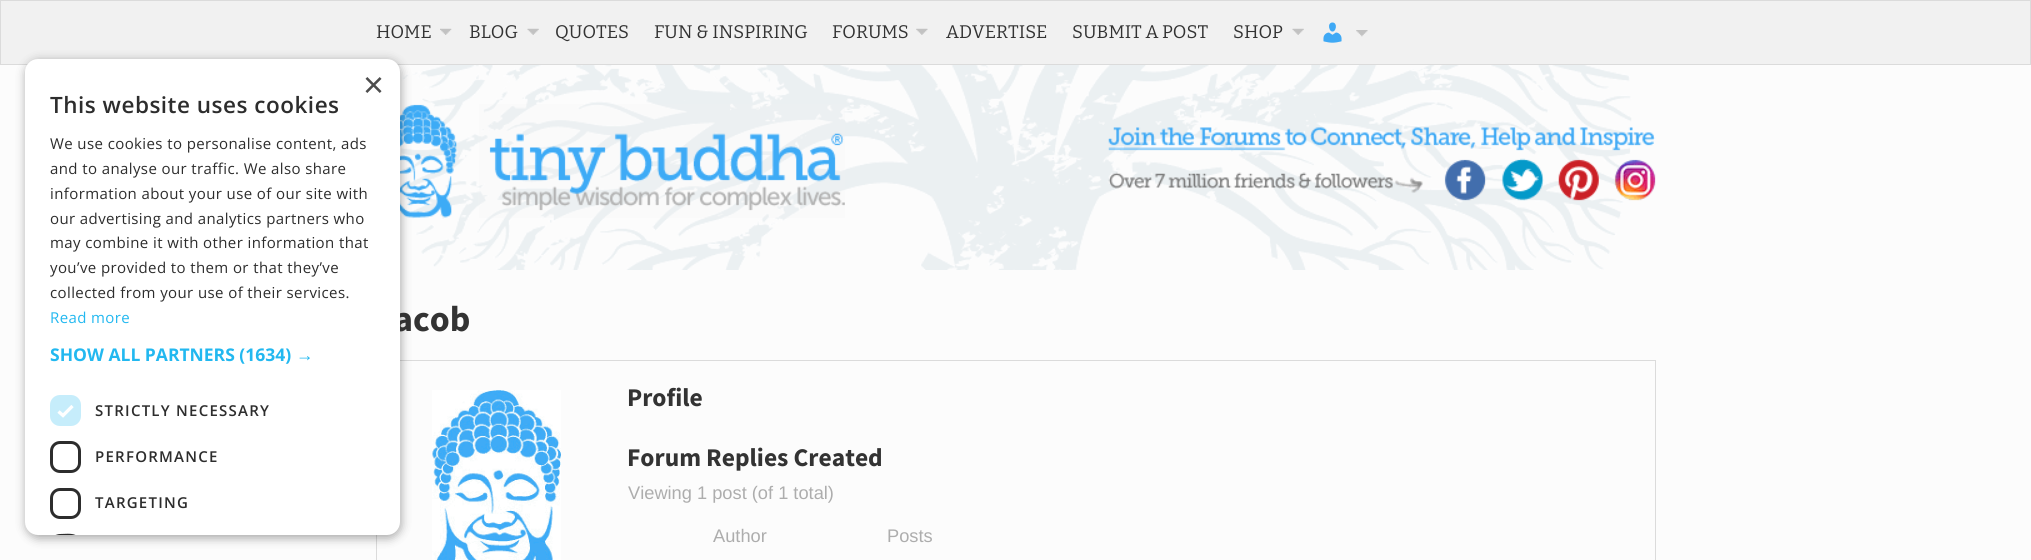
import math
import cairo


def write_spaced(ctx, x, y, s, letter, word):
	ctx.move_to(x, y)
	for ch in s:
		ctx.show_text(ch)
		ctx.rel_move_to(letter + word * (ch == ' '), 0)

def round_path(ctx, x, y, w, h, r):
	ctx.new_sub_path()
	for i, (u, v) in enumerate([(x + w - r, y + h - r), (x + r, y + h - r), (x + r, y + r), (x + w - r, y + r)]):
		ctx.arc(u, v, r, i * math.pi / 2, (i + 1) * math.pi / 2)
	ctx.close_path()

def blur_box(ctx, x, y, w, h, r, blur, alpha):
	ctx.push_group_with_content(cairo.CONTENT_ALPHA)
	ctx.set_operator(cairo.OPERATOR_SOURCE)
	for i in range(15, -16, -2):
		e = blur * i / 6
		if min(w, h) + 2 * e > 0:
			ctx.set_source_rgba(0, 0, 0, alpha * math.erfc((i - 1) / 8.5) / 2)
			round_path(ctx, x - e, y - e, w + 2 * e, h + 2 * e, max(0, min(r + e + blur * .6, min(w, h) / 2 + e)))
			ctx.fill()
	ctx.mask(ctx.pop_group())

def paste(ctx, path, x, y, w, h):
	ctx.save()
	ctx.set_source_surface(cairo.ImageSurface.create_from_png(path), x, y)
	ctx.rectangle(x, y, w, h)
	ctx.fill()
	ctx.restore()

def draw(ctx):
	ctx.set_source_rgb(0.988, 0.988, 0.988)
	ctx.paint()
	ctx.set_source_rgb(0.945, 0.945, 0.945)
	ctx.rectangle(0.5, 0.5, 2030, 64)
	ctx.fill_preserve()
	ctx.set_source_rgb(0.859, 0.859, 0.859)
	ctx.set_line_width(1)
	ctx.stroke()
	paste(ctx, 'media/1.png', 440, 28, 12, 7)
	ctx.select_font_face('Bitter Thin')
	ctx.set_font_size(18.25)
	ctx.set_source_rgb(0.2, 0.2, 0.2)
	ctx.move_to(376, 38)
	ctx.show_text('HOME')
	paste(ctx, 'media/2.png', 527, 28, 12, 7)
	for x, y, s in [
		(469, 38, 'BLOG'),
		(555, 38, 'QUOTES'),
		(654, 38, 'FUN & INSPIRING'),
	]:
		ctx.move_to(x, y)
		ctx.show_text(s)
	paste(ctx, 'media/3.png', 916, 28, 12, 7)
	for x, y, s in [
		(832, 38, 'FORUMS'),
		(946, 38, 'ADVERTISE'),
		(1072, 38, 'SUBMIT A POST'),
	]:
		ctx.move_to(x, y)
		ctx.show_text(s)
	paste(ctx, 'media/4.png', 1292, 28, 12, 7)
	ctx.move_to(1233, 38)
	ctx.show_text('SHOP')
	paste(ctx, 'media/5.png', 1356, 30, 12, 7)
	paste(ctx, 'media/6.png', 1323, 22, 19, 21)
	paste(ctx, 'media/7.png', 400, 65, 1232, 205)
	paste(ctx, 'media/8.png', 400, 104, 445, 114)
	ctx.rectangle(376.5, 360.5, 1279, 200)
	ctx.set_source_rgb(0.859, 0.859, 0.859)
	ctx.stroke()
	ctx.set_source_rgb(0, 0, 0)
	blur_box(ctx, 26, 61, 375, 477, 13, 5, 0.35)
	ctx.select_font_face('Source Sans Pro', cairo.FONT_SLANT_NORMAL, cairo.FONT_WEIGHT_BOLD)
	ctx.set_font_size(36)
	ctx.set_source_rgb(0.2, 0.2, 0.2)
	ctx.move_to(394, 331)
	ctx.show_text('acob')
	ctx.set_source_rgb(1, 1, 1)
	round_path(ctx, 25, 59, 375, 476, 13)
	ctx.fill()
	ctx.select_font_face('Liberation Sans')
	ctx.set_source_rgb(0.302, 0.302, 0.302)
	ctx.move_to(363, 97)
	ctx.show_text('×')
	ctx.select_font_face('Open Sans SemiBold')
	ctx.set_font_size(22.5)
	ctx.set_source_rgb(0.176, 0.176, 0.176)
	write_spaced(ctx, 50, 113, 'This website uses cookies', 0.5, 0)
	ctx.select_font_face('Open Sans')
	ctx.set_font_size(15)
	for x, y, s in [
		(50, 149, 'We use cookies to personalise content, ads'),
		(50, 174, 'and to analyse our traffic. We also share'),
		(50, 199, 'information about your use of our site with'),
		(50, 224, 'our advertising and analytics partners who'),
		(50, 248, 'may combine it with other information that'),
		(50, 273, 'you’ve provided to them or that they’ve'),
		(50, 298, 'collected from your use of their services.'),
	]:
		write_spaced(ctx, x, y, s, 0.4, 0)
	ctx.set_source_rgb(0.133, 0.722, 0.941)
	write_spaced(ctx, 50, 323, 'Read more', 0.4, 0)
	ctx.select_font_face('Open Sans', cairo.FONT_SLANT_NORMAL, cairo.FONT_WEIGHT_BOLD)
	ctx.set_font_size(17.5)
	ctx.move_to(50, 361)
	ctx.show_text('SHOW ALL PARTNERS (1634)')
	ctx.select_font_face('Liberation Sans', cairo.FONT_SLANT_NORMAL, cairo.FONT_WEIGHT_BOLD)
	ctx.move_to(296, 361)
	ctx.show_text('→')
	ctx.set_source_rgb(0.776, 0.929, 0.984)
	round_path(ctx, 50, 395, 31, 31, 10)
	ctx.fill()
	ctx.new_path()
	ctx.move_to(58.5, 411.5)
	ctx.line_to(63, 415.5)
	ctx.line_to(72.5, 406)
	ctx.set_source_rgb(1, 1, 1)
	ctx.set_line_width(3.3)
	ctx.stroke()
	ctx.select_font_face('Open Sans SemiBold')
	ctx.set_font_size(15)
	ctx.set_source_rgb(0.176, 0.176, 0.176)
	write_spaced(ctx, 95, 416, 'STRICTLY NECESSARY', 1.25, 0)
	round_path(ctx, 51.5, 442.5, 28, 29, 8.5)
	ctx.set_line_width(3)
	ctx.stroke()
	write_spaced(ctx, 95, 462, 'PERFORMANCE', 1.25, 0)
	round_path(ctx, 51.5, 489.5, 28, 28, 8.5)
	ctx.stroke()
	write_spaced(ctx, 95, 508, 'TARGETING', 1.25, 0)
	ctx.new_path()
	ctx.move_to(60, 534)
	ctx.curve_to(64, 534, 71.5, 533, 75.5, 535)
	ctx.line_to(55.5, 535)
	ctx.curve_to(57, 534.5, 58.5, 534, 60, 534)
	ctx.close_path()
	ctx.fill()
	paste(ctx, 'media/9.png', 1108, 127, 548, 74)
	paste(ctx, 'media/10.png', 432, 390, 129, 170)
	ctx.select_font_face('Source Sans Pro', cairo.FONT_SLANT_NORMAL, cairo.FONT_WEIGHT_BOLD)
	ctx.set_font_size(25.5)
	ctx.set_source_rgb(0.2, 0.2, 0.2)
	ctx.move_to(627, 406)
	ctx.show_text('Profile')
	ctx.move_to(627, 466)
	ctx.show_text('Forum Replies Created')
	ctx.select_font_face('Liberation Sans')
	ctx.set_font_size(18.25)
	ctx.set_source_rgb(0.678, 0.678, 0.678)
	for x, y, s in [
		(628, 499, 'Viewing 1 post (of 1 total)'),
		(713, 542, 'Author'),
		(887, 542, 'Posts'),
	]:
		ctx.move_to(x, y)
		ctx.show_text(s)


surface = cairo.ImageSurface(cairo.FORMAT_RGB24, 2031, 560)
ctx = cairo.Context(surface)
options = cairo.FontOptions()
options.set_hint_metrics(cairo.HINT_METRICS_OFF)
options.set_hint_style(cairo.HINT_STYLE_NONE)
ctx.set_font_options(options)
ctx.set_miter_limit(4)
draw(ctx)
surface.write_to_png('image.png')
